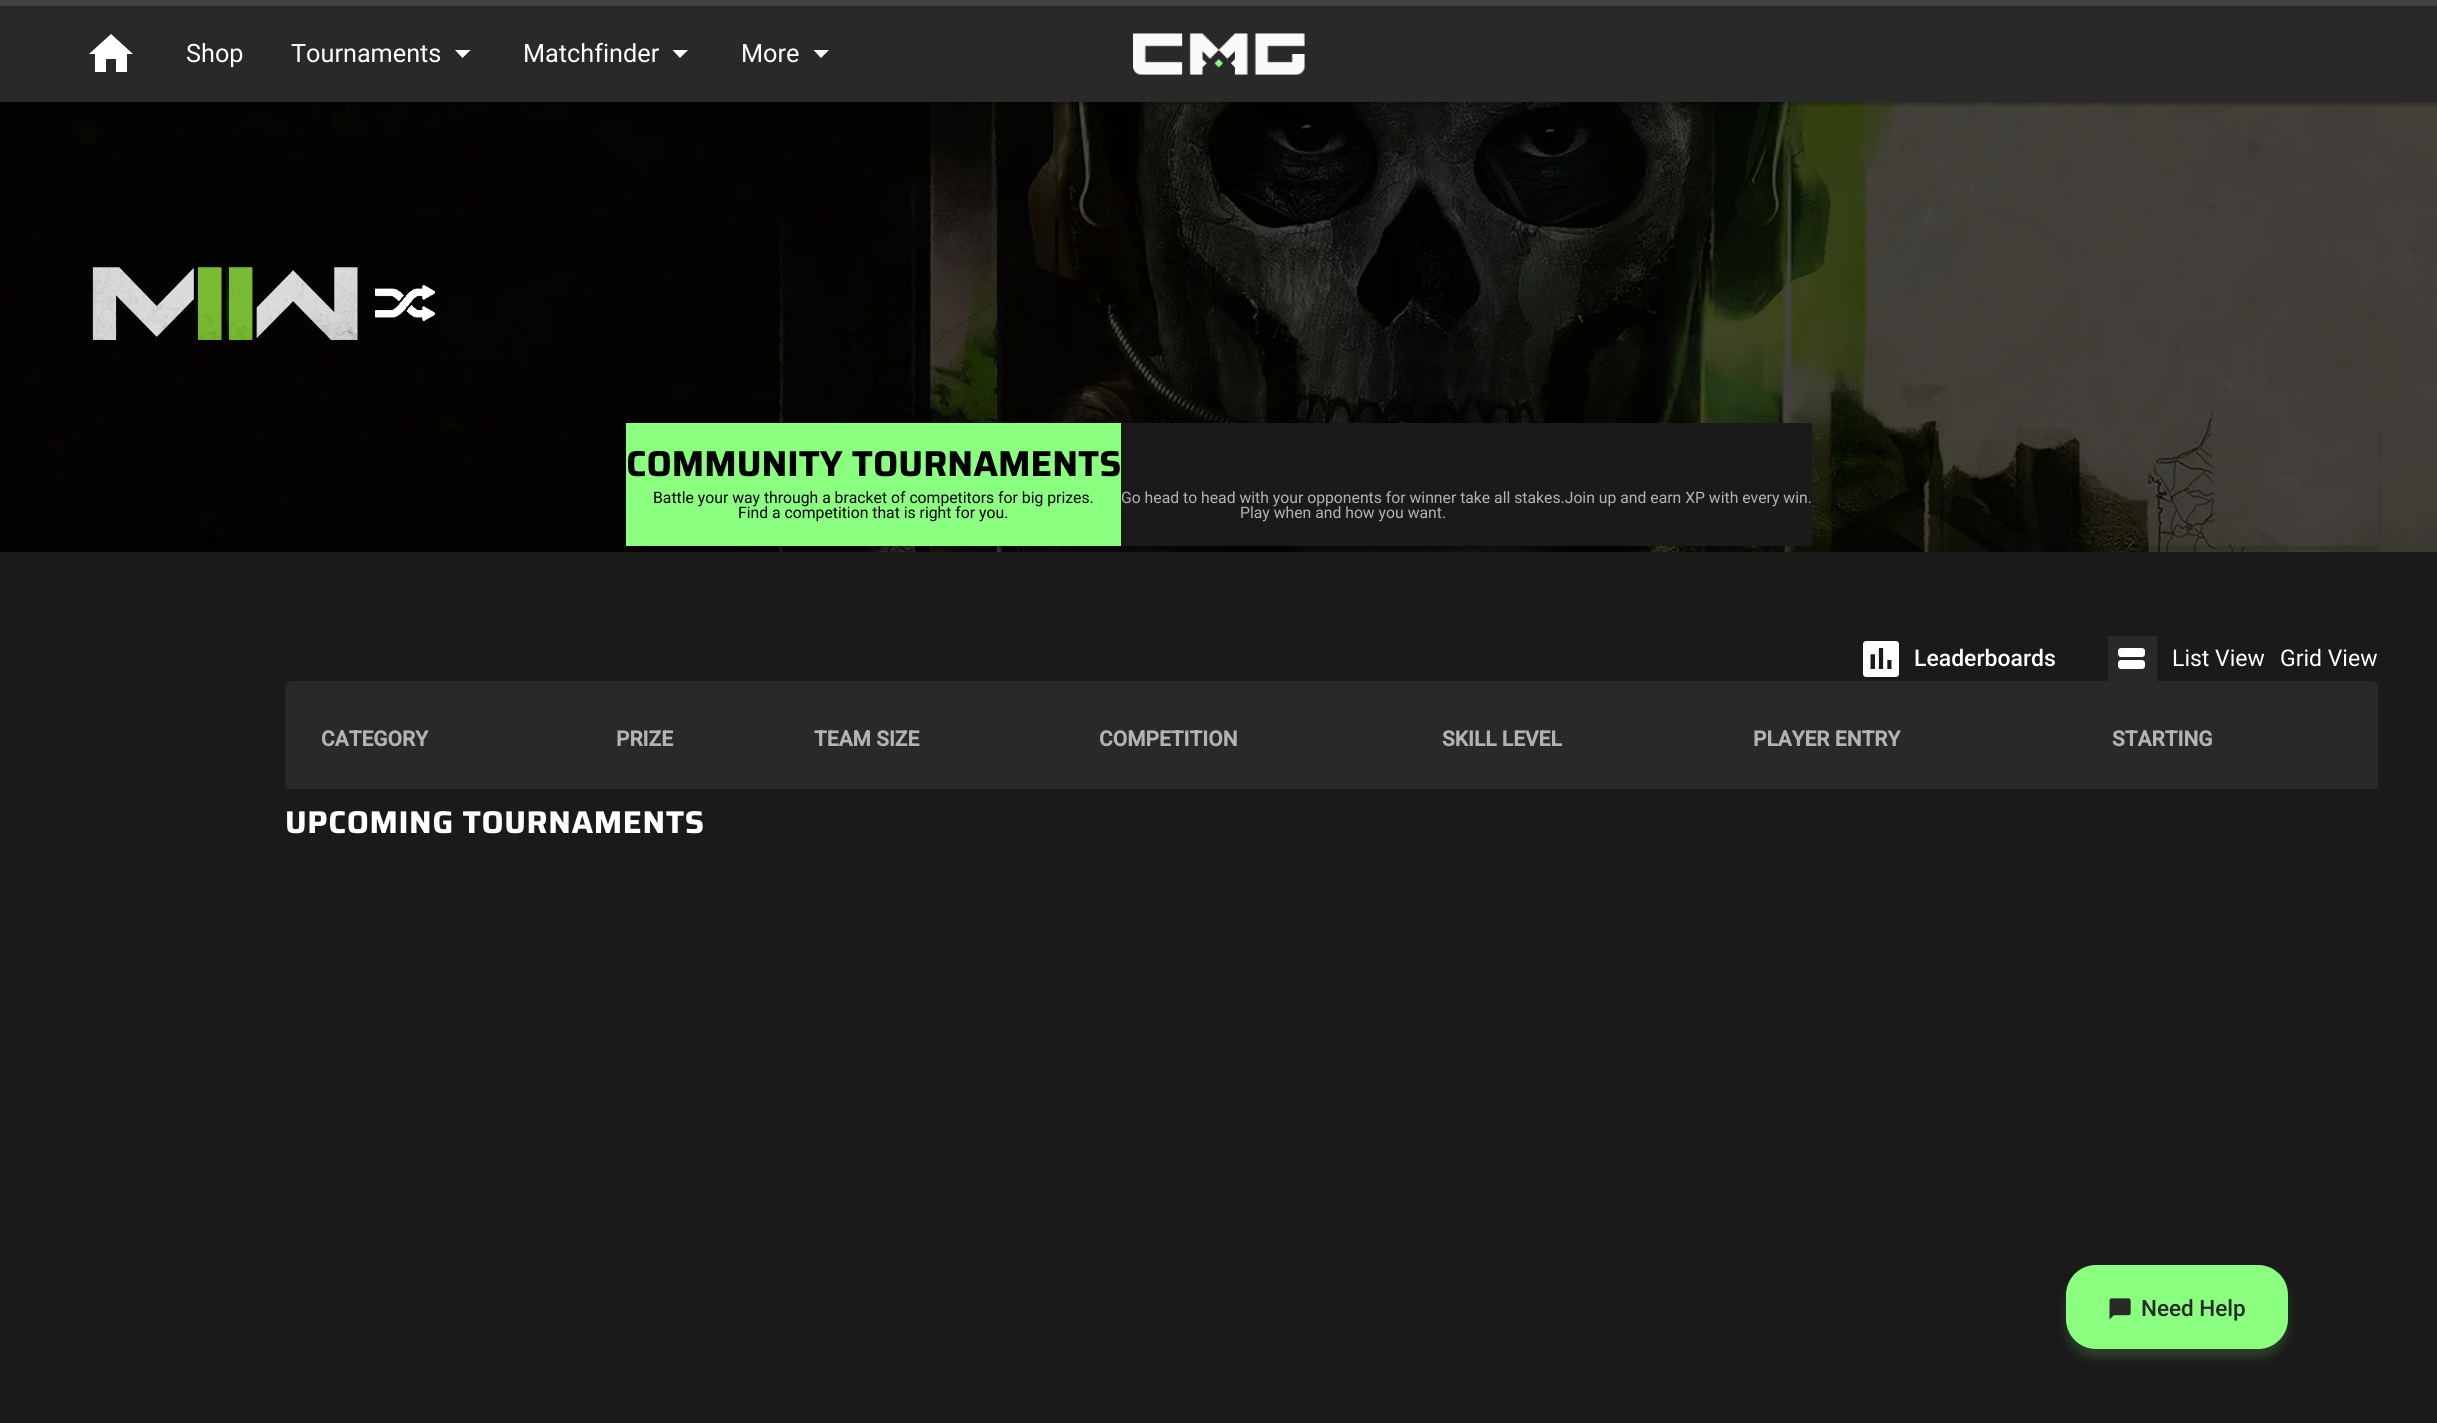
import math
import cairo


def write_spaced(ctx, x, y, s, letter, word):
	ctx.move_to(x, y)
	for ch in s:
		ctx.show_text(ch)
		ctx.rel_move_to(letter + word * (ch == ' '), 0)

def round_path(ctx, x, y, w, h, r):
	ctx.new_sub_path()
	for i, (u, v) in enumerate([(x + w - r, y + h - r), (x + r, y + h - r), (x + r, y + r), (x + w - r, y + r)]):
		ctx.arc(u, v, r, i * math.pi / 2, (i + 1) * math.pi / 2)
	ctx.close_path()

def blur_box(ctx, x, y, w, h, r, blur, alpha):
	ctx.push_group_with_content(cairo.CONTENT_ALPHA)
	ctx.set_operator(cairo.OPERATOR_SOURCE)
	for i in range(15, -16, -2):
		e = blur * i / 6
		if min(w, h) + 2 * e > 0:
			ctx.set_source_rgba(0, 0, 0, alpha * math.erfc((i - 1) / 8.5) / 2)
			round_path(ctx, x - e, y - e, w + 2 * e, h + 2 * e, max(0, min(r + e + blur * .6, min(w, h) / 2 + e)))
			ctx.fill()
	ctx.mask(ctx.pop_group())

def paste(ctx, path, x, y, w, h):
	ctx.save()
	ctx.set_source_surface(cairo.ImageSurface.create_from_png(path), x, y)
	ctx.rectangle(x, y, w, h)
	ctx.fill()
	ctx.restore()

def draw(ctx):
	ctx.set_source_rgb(0.102, 0.102, 0.102)
	ctx.paint()
	paste(ctx, 'media/2.png', 0, 102, 2437, 450)
	ctx.set_source_rgb(0, 0, 0)
	blur_box(ctx, 0, 3, 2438, 102, 0, 1.5, 0.24)
	ctx.set_source_rgb(0.161, 0.161, 0.161)
	ctx.rectangle(0, 6, 2437, 96)
	ctx.fill()
	ctx.set_source_rgb(0.259, 0.259, 0.259)
	ctx.rectangle(0, 0, 2437, 6)
	ctx.fill()
	ctx.set_source_rgb(1, 1, 1)
	ctx.new_path()
	ctx.move_to(106, 72)
	ctx.line_to(95, 72)
	ctx.line_to(95, 54)
	ctx.line_to(89, 54)
	ctx.line_to(111, 34)
	ctx.line_to(133, 54)
	ctx.line_to(127, 54)
	ctx.line_to(127, 72)
	ctx.line_to(116, 72)
	ctx.line_to(116, 59)
	ctx.line_to(106, 59)
	ctx.close_path()
	ctx.fill()
	ctx.select_font_face('Roboto')
	ctx.set_font_size(25.25)
	ctx.move_to(186, 62)
	ctx.show_text('Shop')
	ctx.move_to(291, 62)
	ctx.show_text('Tournaments')
	ctx.new_path()
	ctx.move_to(470.5, 50)
	ctx.line_to(462.5, 58)
	ctx.line_to(455, 50)
	ctx.close_path()
	ctx.fill()
	ctx.move_to(523, 62)
	ctx.show_text('Matchfinder')
	ctx.new_path()
	ctx.move_to(688, 50)
	ctx.line_to(680, 58)
	ctx.line_to(672.5, 50)
	ctx.close_path()
	ctx.fill()
	ctx.move_to(741, 62)
	ctx.show_text('More')
	ctx.new_path()
	ctx.move_to(829, 50)
	ctx.line_to(821, 58)
	ctx.line_to(813.5, 50)
	ctx.close_path()
	ctx.fill()
	paste(ctx, 'media/1.png', 1133, 33, 172, 42)
	paste(ctx, 'media/3.png', 92, 265, 266, 76)
	paste(ctx, 'media/4.png', 375, 284, 60, 38)
	ctx.save()
	ctx.set_fill_rule(cairo.FILL_RULE_EVEN_ODD)
	ctx.new_path()
	ctx.move_to(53, 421)
	ctx.line_to(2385, 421)
	ctx.line_to(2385, 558)
	ctx.line_to(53, 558)
	ctx.close_path()
	ctx.move_to(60, 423)
	ctx.line_to(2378, 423)
	ctx.line_to(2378, 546)
	ctx.line_to(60, 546)
	ctx.close_path()
	ctx.clip()
	ctx.set_source_rgb(0, 0, 0)
	blur_box(ctx, 60, 428, 2318, 123, 0, 2, 0.16)
	ctx.restore()
	ctx.set_source_rgb(0.541, 1, 0.502)
	ctx.rectangle(626, 423, 495, 123)
	ctx.fill()
	ctx.select_font_face('Saira', cairo.FONT_SLANT_NORMAL, cairo.FONT_WEIGHT_BOLD)
	ctx.set_font_size(36)
	ctx.set_source_rgb(0, 0, 0)
	ctx.move_to(626, 476)
	ctx.show_text('COMMUNITY TOURNAMENTS')
	ctx.select_font_face('Roboto')
	ctx.set_font_size(15.75)
	ctx.move_to(653, 503)
	ctx.show_text('Battle your way through a bracket of competitors for big prizes.')
	ctx.move_to(738, 518)
	ctx.show_text('Find a competition that is right for you.')
	ctx.set_source_rgb(0.102, 0.102, 0.102)
	ctx.rectangle(1121, 423, 691, 123)
	ctx.fill()
	ctx.set_source_rgb(0.702, 0.702, 0.702)
	ctx.move_to(1121, 503)
	ctx.show_text('Go head to head with your opponents for winner take all stakes.Join up and earn XP with every win.')
	ctx.move_to(1240, 518)
	ctx.show_text('Play when and how you want.')
	ctx.set_source_rgb(1, 1, 1)
	round_path(ctx, 1863, 641, 36, 36, 3)
	ctx.fill()
	paste(ctx, 'media/5.png', 1870, 648, 22, 21)
	ctx.select_font_face('Roboto Medium')
	ctx.set_font_size(23)
	ctx.move_to(1914, 666)
	ctx.show_text('Leaderboards')
	ctx.set_source_rgb(0.161, 0.161, 0.161)
	ctx.rectangle(2108, 636, 49, 45)
	ctx.fill()
	paste(ctx, 'media/6.png', 2118, 648, 27, 21)
	ctx.select_font_face('Roboto')
	ctx.set_source_rgb(1, 1, 1)
	ctx.move_to(2172, 666)
	ctx.show_text('List View')
	ctx.move_to(2280, 666)
	ctx.show_text('Grid View')
	ctx.set_source_rgb(0.161, 0.161, 0.161)
	ctx.new_path()
	ctx.move_to(291, 681)
	ctx.line_to(2372, 681)
	ctx.curve_to(2375.5, 681, 2378, 683.5, 2378, 687)
	ctx.line_to(2378, 789)
	ctx.line_to(285, 789)
	ctx.line_to(285, 687)
	ctx.curve_to(285, 683.5, 287.5, 681, 291, 681)
	ctx.close_path()
	ctx.fill()
	ctx.select_font_face('Roboto', cairo.FONT_SLANT_NORMAL, cairo.FONT_WEIGHT_BOLD)
	ctx.set_font_size(21)
	ctx.set_source_rgb(0.702, 0.702, 0.702)
	for x, y, s in [
		(321, 746, 'CATEGORY'),
		(616, 746, 'PRIZE'),
		(814, 746, 'TEAM SIZE'),
		(1099, 746, 'COMPETITION'),
		(1442, 746, 'SKILL LEVEL'),
		(1753, 746, 'PLAYER ENTRY'),
		(2112, 746, 'STARTING'),
	]:
		ctx.move_to(x, y)
		ctx.show_text(s)
	ctx.select_font_face('Saira', cairo.FONT_SLANT_NORMAL, cairo.FONT_WEIGHT_BOLD)
	ctx.set_font_size(31.5)
	ctx.set_source_rgb(1, 1, 1)
	write_spaced(ctx, 285, 833, 'UPCOMING TOURNAMENTS', 0.6, 0)
	ctx.set_source_rgb(0.541, 1, 0.502)
	blur_box(ctx, 2066, 1274, 222, 84, 30, 4.5, 0.16)
	ctx.set_source_rgb(0.541, 1, 0.502)
	round_path(ctx, 2066, 1265, 222, 84, 30)
	ctx.fill()
	paste(ctx, 'media/7.png', 2109, 1298, 22, 22)
	ctx.select_font_face('Roboto Medium')
	ctx.set_font_size(22.5)
	ctx.set_source_rgb(0.161, 0.161, 0.161)
	ctx.move_to(2141, 1316)
	ctx.show_text('Need Help')


surface = cairo.ImageSurface(cairo.FORMAT_RGB24, 2437, 1423)
ctx = cairo.Context(surface)
options = cairo.FontOptions()
options.set_hint_metrics(cairo.HINT_METRICS_OFF)
options.set_hint_style(cairo.HINT_STYLE_NONE)
ctx.set_font_options(options)
ctx.set_miter_limit(4)
draw(ctx)
surface.write_to_png('image.png')
